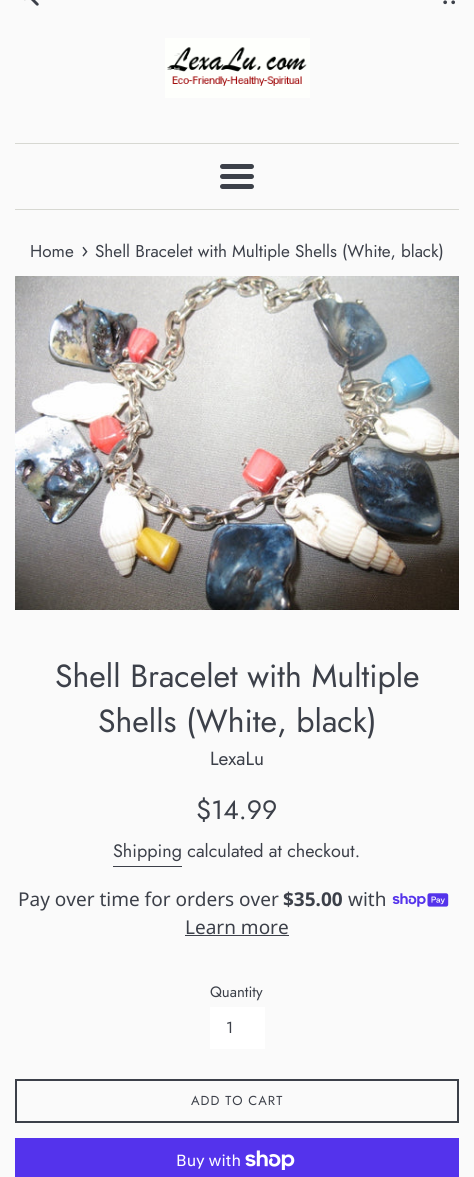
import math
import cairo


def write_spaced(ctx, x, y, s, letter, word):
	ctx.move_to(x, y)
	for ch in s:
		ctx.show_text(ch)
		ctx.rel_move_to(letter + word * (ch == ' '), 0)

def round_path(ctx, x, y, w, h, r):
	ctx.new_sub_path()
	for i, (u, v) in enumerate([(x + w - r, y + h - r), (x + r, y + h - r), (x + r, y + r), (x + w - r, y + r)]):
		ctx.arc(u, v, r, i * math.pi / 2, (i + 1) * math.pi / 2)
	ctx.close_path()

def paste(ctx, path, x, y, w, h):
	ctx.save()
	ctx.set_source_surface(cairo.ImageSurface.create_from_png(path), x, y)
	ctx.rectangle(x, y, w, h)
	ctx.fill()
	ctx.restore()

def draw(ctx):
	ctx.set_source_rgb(0.98, 0.98, 0.98)
	ctx.paint()
	paste(ctx, 'media/1.png', 24, 0, 15, 6)
	paste(ctx, 'media/2.png', 443, 0, 12, 5)
	paste(ctx, 'media/3.png', 165, 38, 145, 60)
	ctx.set_source_rgb(0.843, 0.847, 0.824)
	ctx.rectangle(15, 143, 444, 1)
	ctx.fill()
	ctx.set_source_rgb(0.235, 0.251, 0.286)
	round_path(ctx, 220, 164, 34, 5, 2.5)
	ctx.fill()
	round_path(ctx, 220, 174, 34, 5, 2.5)
	ctx.fill()
	round_path(ctx, 220, 184, 34, 5, 2.5)
	ctx.fill()
	ctx.set_source_rgb(0.843, 0.847, 0.824)
	ctx.rectangle(15, 209, 444, 1)
	ctx.fill()
	ctx.select_font_face('Jost')
	ctx.set_font_size(17.1)
	ctx.set_source_rgb(0.235, 0.251, 0.286)
	ctx.move_to(30, 257)
	ctx.show_text('Home')
	ctx.set_font_size(21)
	ctx.move_to(81, 257)
	ctx.show_text('›')
	ctx.set_font_size(17.1)
	ctx.move_to(95, 257)
	ctx.show_text('Shell Bracelet with Multiple Shells (White, black)')
	paste(ctx, 'media/4.png', 15, 276, 444, 334)
	ctx.set_font_size(32)
	ctx.move_to(55, 687)
	ctx.show_text('Shell Bracelet with Multiple')
	ctx.move_to(98, 732)
	ctx.show_text('Shells (White, black)')
	ctx.set_font_size(19)
	ctx.move_to(210, 765)
	ctx.show_text('LexaLu')
	ctx.set_font_size(26.5)
	ctx.move_to(196, 819)
	ctx.show_text('$14.99')
	ctx.set_font_size(18)
	ctx.move_to(113, 857)
	ctx.show_text('Shipping calculated at checkout.')
	ctx.rectangle(113, 866, 69, 1)
	ctx.fill()
	ctx.select_font_face('Noto Sans')
	ctx.set_font_size(19)
	ctx.move_to(18, 906)
	ctx.show_text('Pay over time for orders over')
	ctx.select_font_face('Noto Sans', cairo.FONT_SLANT_NORMAL, cairo.FONT_WEIGHT_BOLD)
	ctx.move_to(283, 906)
	ctx.show_text('$35.00')
	ctx.select_font_face('Noto Sans')
	ctx.move_to(348, 906)
	ctx.show_text('with')
	paste(ctx, 'media/5.png', 392, 893, 57, 14)
	ctx.move_to(185, 934)
	ctx.show_text('Learn more')
	ctx.rectangle(185, 935, 104, 1)
	ctx.fill()
	ctx.select_font_face('Jost')
	ctx.set_font_size(15)
	ctx.move_to(210, 997)
	ctx.show_text('Quantity')
	ctx.set_source_rgb(1, 1, 1)
	ctx.rectangle(210, 1007, 55, 42)
	ctx.fill()
	ctx.set_font_size(16)
	ctx.set_source_rgb(0.235, 0.251, 0.286)
	ctx.move_to(226, 1033)
	ctx.show_text('1')
	ctx.rectangle(16, 1080, 442, 42)
	ctx.stroke()
	ctx.set_font_size(13)
	write_spaced(ctx, 191, 1105, 'ADD TO CART', 1, 0)
	ctx.set_source_rgb(0.329, 0.2, 0.922)
	ctx.rectangle(15, 1138, 444, 39)
	ctx.fill()
	ctx.select_font_face('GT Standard')
	ctx.set_font_size(16)
	ctx.set_source_rgb(1, 1, 1)
	ctx.move_to(176, 1166)
	ctx.show_text('Buy with')
	paste(ctx, 'media/6.png', 245, 1150, 50, 20)


surface = cairo.ImageSurface(cairo.FORMAT_RGB24, 474, 1177)
ctx = cairo.Context(surface)
options = cairo.FontOptions()
options.set_hint_metrics(cairo.HINT_METRICS_OFF)
options.set_hint_style(cairo.HINT_STYLE_NONE)
ctx.set_font_options(options)
ctx.set_miter_limit(4)
draw(ctx)
surface.write_to_png('image.png')
